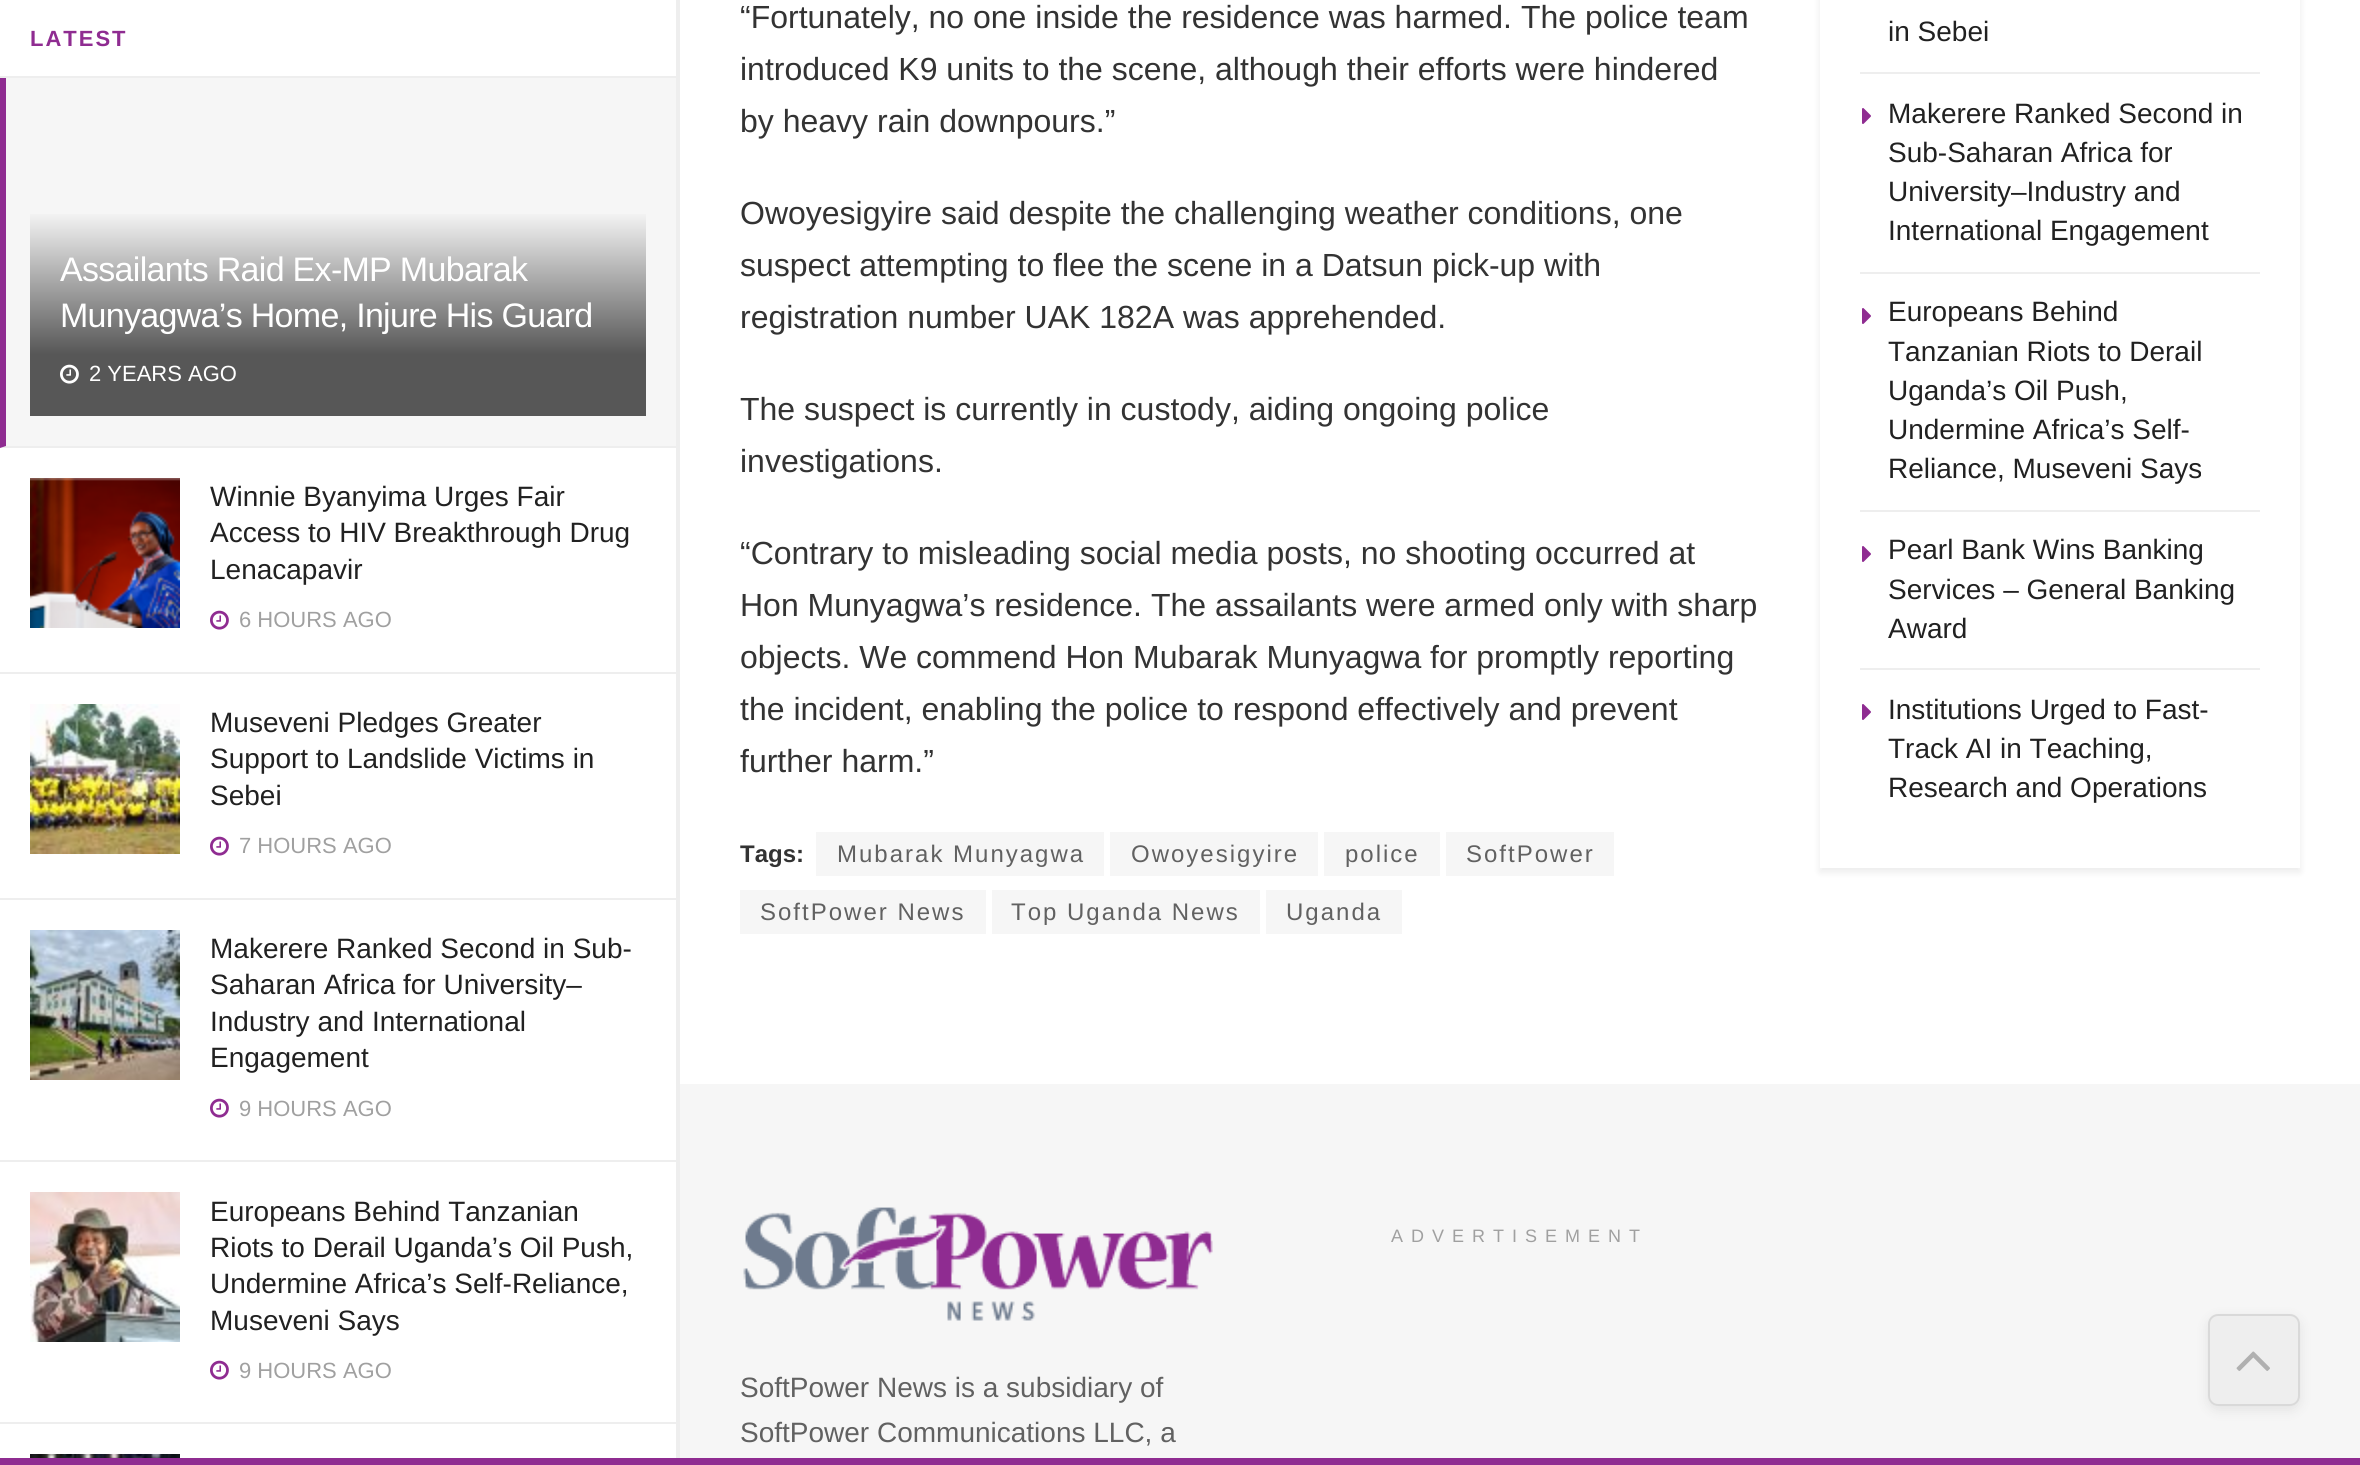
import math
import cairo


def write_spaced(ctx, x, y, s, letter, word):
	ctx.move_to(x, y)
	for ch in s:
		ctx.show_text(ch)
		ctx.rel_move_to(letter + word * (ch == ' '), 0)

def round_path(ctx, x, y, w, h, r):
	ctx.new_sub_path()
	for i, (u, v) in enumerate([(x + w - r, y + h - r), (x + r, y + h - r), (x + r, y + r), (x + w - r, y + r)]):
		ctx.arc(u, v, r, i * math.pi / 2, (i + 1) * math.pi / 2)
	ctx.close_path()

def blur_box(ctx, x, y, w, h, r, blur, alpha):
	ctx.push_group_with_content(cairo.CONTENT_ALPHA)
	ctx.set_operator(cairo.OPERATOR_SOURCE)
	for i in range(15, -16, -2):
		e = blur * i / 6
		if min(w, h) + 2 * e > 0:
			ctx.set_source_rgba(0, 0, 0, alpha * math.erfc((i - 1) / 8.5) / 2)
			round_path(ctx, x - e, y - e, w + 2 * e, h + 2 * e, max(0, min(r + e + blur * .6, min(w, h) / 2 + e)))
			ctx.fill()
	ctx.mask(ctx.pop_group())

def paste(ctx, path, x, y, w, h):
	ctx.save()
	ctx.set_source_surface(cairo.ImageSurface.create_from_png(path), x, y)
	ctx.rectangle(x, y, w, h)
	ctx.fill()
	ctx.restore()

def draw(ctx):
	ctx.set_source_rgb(1, 1, 1)
	ctx.paint()
	ctx.set_source_rgb(0.933, 0.933, 0.933)
	ctx.rectangle(676, 0, 4, 1465)
	ctx.fill()
	ctx.rectangle(0, 76, 676, 2)
	ctx.fill()
	ctx.select_font_face('Liberation Sans', cairo.FONT_SLANT_NORMAL, cairo.FONT_WEIGHT_BOLD)
	ctx.set_font_size(22)
	ctx.set_source_rgb(0.561, 0.173, 0.569)
	write_spaced(ctx, 30, 46, 'LATEST', 2, 0)
	ctx.set_source_rgb(0.961, 0.961, 0.961)
	ctx.rectangle(0, 78, 676, 370)
	ctx.fill()
	ctx.set_source_rgb(0.933, 0.933, 0.933)
	ctx.new_path()
	ctx.move_to(676, 448)
	ctx.line_to(0, 448)
	ctx.line_to(6, 446)
	ctx.line_to(676, 446)
	ctx.close_path()
	ctx.fill()
	ctx.set_source_rgb(0.561, 0.173, 0.569)
	ctx.new_path()
	ctx.move_to(0, 448)
	ctx.line_to(0, 78)
	ctx.line_to(6, 78)
	ctx.line_to(6, 446)
	ctx.close_path()
	ctx.fill()
	gradient = cairo.LinearGradient(338, 210, 338, 416)
	gradient.add_color_stop_rgba(0, 0.969, 0.969, 0.969, 1)
	gradient.add_color_stop_rgba(0.7, 0.341, 0.341, 0.341, 1)
	ctx.set_source(gradient)
	ctx.rectangle(30, 214, 616, 202)
	ctx.fill()
	ctx.select_font_face('Liberation Sans')
	ctx.set_font_size(34)
	ctx.set_source_rgb(1, 1, 1)
	write_spaced(ctx, 60, 281, 'Assailants Raid Ex-MP Mubarak', -0.7, 0)
	write_spaced(ctx, 60, 327, 'Munyagwa’s Home, Injure His Guard', -0.7, 0)
	paste(ctx, 'media/1.png', 60, 364, 19, 20)
	ctx.set_font_size(22)
	ctx.move_to(89, 381)
	ctx.show_text('2 YEARS AGO')
	ctx.set_source_rgb(0.933, 0.933, 0.933)
	ctx.rectangle(0, 672, 676, 2)
	ctx.fill()
	paste(ctx, 'media/2.png', 30, 478, 150, 150)
	ctx.set_font_size(28)
	ctx.set_source_rgb(0.129, 0.129, 0.129)
	for x, y, s in [
		(210, 506, 'Winnie Byanyima Urges Fair'),
		(210, 542, 'Access to HIV Breakthrough Drug'),
		(210, 579, 'Lenacapavir'),
	]:
		ctx.move_to(x, y)
		ctx.show_text(s)
	paste(ctx, 'media/3.png', 210, 610, 19, 20)
	ctx.set_font_size(22)
	ctx.set_source_rgb(0.627, 0.627, 0.627)
	ctx.move_to(239, 627)
	ctx.show_text('6 HOURS AGO')
	ctx.set_source_rgb(0.933, 0.933, 0.933)
	ctx.rectangle(0, 898, 676, 2)
	ctx.fill()
	paste(ctx, 'media/4.png', 30, 704, 150, 150)
	ctx.set_font_size(28)
	ctx.set_source_rgb(0.129, 0.129, 0.129)
	for x, y, s in [
		(210, 732, 'Museveni Pledges Greater'),
		(210, 768, 'Support to Landslide Victims in'),
		(210, 805, 'Sebei'),
	]:
		ctx.move_to(x, y)
		ctx.show_text(s)
	paste(ctx, 'media/3.png', 210, 836, 19, 20)
	ctx.set_font_size(22)
	ctx.set_source_rgb(0.627, 0.627, 0.627)
	ctx.move_to(239, 853)
	ctx.show_text('7 HOURS AGO')
	ctx.set_source_rgb(0.933, 0.933, 0.933)
	ctx.rectangle(0, 1160, 676, 2)
	ctx.fill()
	paste(ctx, 'media/5.png', 30, 930, 150, 150)
	ctx.set_font_size(28)
	ctx.set_source_rgb(0.129, 0.129, 0.129)
	for x, y, s in [
		(210, 958, 'Makerere Ranked Second in Sub-'),
		(210, 994, 'Saharan Africa for University–'),
		(210, 1031, 'Industry and International'),
		(210, 1067, 'Engagement'),
	]:
		ctx.move_to(x, y)
		ctx.show_text(s)
	paste(ctx, 'media/3.png', 210, 1098, 19, 20)
	ctx.set_font_size(22)
	ctx.set_source_rgb(0.627, 0.627, 0.627)
	ctx.move_to(239, 1116)
	ctx.show_text('9 HOURS AGO')
	ctx.set_source_rgb(0.933, 0.933, 0.933)
	ctx.rectangle(0, 1422, 676, 2)
	ctx.fill()
	paste(ctx, 'media/6.png', 30, 1192, 150, 150)
	ctx.set_font_size(28)
	ctx.set_source_rgb(0.129, 0.129, 0.129)
	for x, y, s in [
		(210, 1221, 'Europeans Behind Tanzanian'),
		(210, 1257, 'Riots to Derail Uganda’s Oil Push,'),
		(210, 1293, 'Undermine Africa’s Self-Reliance,'),
		(210, 1330, 'Museveni Says'),
	]:
		ctx.move_to(x, y)
		ctx.show_text(s)
	paste(ctx, 'media/3.png', 210, 1360, 19, 20)
	ctx.set_font_size(22)
	ctx.set_source_rgb(0.627, 0.627, 0.627)
	ctx.move_to(239, 1378)
	ctx.show_text('9 HOURS AGO')
	paste(ctx, 'media/7.png', 30, 1454, 150, 4)
	ctx.set_font_size(32)
	ctx.set_source_rgb(0.2, 0.2, 0.2)
	for x, y, s in [
		(740, 28, '“Fortunately, no one inside the residence was harmed. The police team'),
		(740, 80, 'introduced K9 units to the scene, although their efforts were hindered'),
		(740, 132, 'by heavy rain downpours.”'),
		(740, 224, 'Owoyesigyire said despite the challenging weather conditions, one'),
		(740, 276, 'suspect attempting to flee the scene in a Datsun pick-up with'),
		(740, 328, 'registration number UAK 182A was apprehended.'),
		(740, 420, 'The suspect is currently in custody, aiding ongoing police'),
		(740, 472, 'investigations.'),
		(740, 564, '“Contrary to misleading social media posts, no shooting occurred at'),
		(740, 616, 'Hon Munyagwa’s residence. The assailants were armed only with sharp'),
		(740, 668, 'objects. We commend Hon Mubarak Munyagwa for promptly reporting'),
		(740, 720, 'the incident, enabling the police to respond effectively and prevent'),
		(740, 772, 'further harm.”'),
	]:
		ctx.move_to(x, y)
		ctx.show_text(s)
	ctx.select_font_face('Liberation Sans', cairo.FONT_SLANT_NORMAL, cairo.FONT_WEIGHT_BOLD)
	ctx.set_font_size(24)
	ctx.move_to(740, 862)
	ctx.show_text('Tags:')
	ctx.set_source_rgb(0.961, 0.961, 0.961)
	ctx.rectangle(816, 832, 288, 44)
	ctx.fill()
	ctx.select_font_face('Liberation Sans')
	ctx.set_source_rgb(0.38, 0.38, 0.38)
	write_spaced(ctx, 837, 862, 'Mubarak Munyagwa', 2, 0)
	ctx.set_source_rgb(0.961, 0.961, 0.961)
	ctx.rectangle(1110, 832, 208, 44)
	ctx.fill()
	ctx.set_source_rgb(0.38, 0.38, 0.38)
	write_spaced(ctx, 1131, 862, 'Owoyesigyire', 2, 0)
	ctx.set_source_rgb(0.961, 0.961, 0.961)
	ctx.rectangle(1324, 832, 116, 44)
	ctx.fill()
	ctx.set_source_rgb(0.38, 0.38, 0.38)
	write_spaced(ctx, 1345, 862, 'police', 2, 0)
	ctx.set_source_rgb(0.961, 0.961, 0.961)
	ctx.rectangle(1446, 832, 168, 44)
	ctx.fill()
	ctx.set_source_rgb(0.38, 0.38, 0.38)
	write_spaced(ctx, 1466, 862, 'SoftPower', 2, 0)
	ctx.set_source_rgb(0.961, 0.961, 0.961)
	ctx.rectangle(740, 890, 246, 44)
	ctx.fill()
	ctx.set_source_rgb(0.38, 0.38, 0.38)
	write_spaced(ctx, 760, 920, 'SoftPower News', 2, 0)
	ctx.set_source_rgb(0.961, 0.961, 0.961)
	ctx.rectangle(992, 890, 268, 44)
	ctx.fill()
	ctx.set_source_rgb(0.38, 0.38, 0.38)
	write_spaced(ctx, 1011, 920, 'Top Uganda News', 2, 0)
	ctx.set_source_rgb(0.961, 0.961, 0.961)
	ctx.rectangle(1266, 890, 136, 44)
	ctx.fill()
	ctx.set_source_rgb(0.38, 0.38, 0.38)
	write_spaced(ctx, 1286, 920, 'Uganda', 2, 0)
	ctx.save()
	ctx.set_fill_rule(cairo.FILL_RULE_EVEN_ODD)
	ctx.new_path()
	ctx.move_to(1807, 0)
	ctx.line_to(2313, 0)
	ctx.line_to(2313, 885)
	ctx.line_to(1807, 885)
	ctx.close_path()
	ctx.move_to(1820, -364)
	ctx.line_to(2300, -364)
	ctx.line_to(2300, 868)
	ctx.line_to(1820, 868)
	ctx.close_path()
	ctx.clip()
	ctx.set_source_rgb(0, 0, 0)
	blur_box(ctx, 1820, -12, 480, 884, 0, 4, 0.08)
	ctx.restore()
	ctx.set_source_rgb(0.933, 0.933, 0.933)
	ctx.rectangle(1860, 72, 400, 2)
	ctx.fill()
	ctx.set_font_size(28)
	ctx.set_source_rgb(0.129, 0.129, 0.129)
	ctx.move_to(1888, 41)
	ctx.show_text('in Sebei')
	ctx.set_source_rgb(0.933, 0.933, 0.933)
	ctx.rectangle(1860, 272, 400, 2)
	ctx.fill()
	paste(ctx, 'media/8.png', 1862, 108, 9, 16)
	ctx.set_source_rgb(0.129, 0.129, 0.129)
	for x, y, s in [
		(1888, 123, 'Makerere Ranked Second in'),
		(1888, 162, 'Sub-Saharan Africa for'),
		(1888, 201, 'University–Industry and'),
		(1888, 240, 'International Engagement'),
	]:
		ctx.move_to(x, y)
		ctx.show_text(s)
	ctx.set_source_rgb(0.933, 0.933, 0.933)
	ctx.rectangle(1860, 510, 400, 2)
	ctx.fill()
	paste(ctx, 'media/8.png', 1862, 308, 9, 16)
	ctx.set_source_rgb(0.129, 0.129, 0.129)
	for x, y, s in [
		(1888, 321, 'Europeans Behind'),
		(1888, 361, 'Tanzanian Riots to Derail'),
		(1888, 400, 'Uganda’s Oil Push,'),
		(1888, 439, 'Undermine Africa’s Self-'),
		(1888, 478, 'Reliance, Museveni Says'),
	]:
		ctx.move_to(x, y)
		ctx.show_text(s)
	ctx.set_source_rgb(0.933, 0.933, 0.933)
	ctx.rectangle(1860, 668, 400, 2)
	ctx.fill()
	paste(ctx, 'media/8.png', 1862, 546, 9, 16)
	ctx.set_source_rgb(0.129, 0.129, 0.129)
	for x, y, s in [
		(1888, 559, 'Pearl Bank Wins Banking'),
		(1888, 599, 'Services – General Banking'),
		(1888, 638, 'Award'),
	]:
		ctx.move_to(x, y)
		ctx.show_text(s)
	paste(ctx, 'media/8.png', 1862, 704, 9, 16)
	for x, y, s in [
		(1888, 719, 'Institutions Urged to Fast-'),
		(1888, 758, 'Track AI in Teaching,'),
		(1888, 797, 'Research and Operations'),
	]:
		ctx.move_to(x, y)
		ctx.show_text(s)
	ctx.set_source_rgb(0.961, 0.961, 0.961)
	ctx.rectangle(680, 1084, 1680, 374)
	ctx.fill()
	ctx.set_font_size(18)
	ctx.set_source_rgb(0.627, 0.627, 0.627)
	write_spaced(ctx, 1391, 1242, 'ADVERTISEMENT', 8, 0)
	paste(ctx, 'media/9.png', 743, 1207, 470, 114)
	ctx.set_font_size(28)
	ctx.set_source_rgb(0.38, 0.38, 0.38)
	ctx.move_to(740, 1397)
	ctx.show_text('SoftPower News is a subsidiary of')
	ctx.move_to(740, 1442)
	ctx.show_text('SoftPower Communications LLC, a')
	ctx.save()
	ctx.set_fill_rule(cairo.FILL_RULE_EVEN_ODD)
	ctx.new_path()
	ctx.move_to(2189, 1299)
	ctx.line_to(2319, 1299)
	ctx.line_to(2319, 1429)
	ctx.line_to(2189, 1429)
	ctx.close_path()
	ctx.move_to(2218, 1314)
	ctx.line_to(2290, 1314)
	ctx.curve_to(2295.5, 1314, 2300, 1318.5, 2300, 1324)
	ctx.line_to(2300, 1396)
	ctx.curve_to(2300, 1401.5, 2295.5, 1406, 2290, 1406)
	ctx.line_to(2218, 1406)
	ctx.curve_to(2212.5, 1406, 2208, 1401.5, 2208, 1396)
	ctx.line_to(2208, 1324)
	ctx.curve_to(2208, 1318.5, 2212.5, 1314, 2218, 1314)
	ctx.close_path()
	ctx.clip()
	ctx.set_source_rgb(0.192, 0.192, 0.192)
	blur_box(ctx, 2208, 1318, 92, 92, 10, 6, 0.1)
	ctx.restore()
	ctx.set_source_rgba(0.761, 0.761, 0.761, 0.15)
	round_path(ctx, 2208, 1314, 92, 92, 10)
	ctx.fill()
	round_path(ctx, 2209, 1315, 90, 90, 9)
	ctx.set_source_rgba(0.192, 0.192, 0.192, 0.11)
	ctx.stroke()
	paste(ctx, 'media/10.png', 2236, 1351, 34, 20)
	ctx.set_source_rgb(0.561, 0.173, 0.569)
	ctx.rectangle(0, 1458, 2360, 7)
	ctx.fill()


surface = cairo.ImageSurface(cairo.FORMAT_RGB24, 2360, 1465)
ctx = cairo.Context(surface)
options = cairo.FontOptions()
options.set_hint_metrics(cairo.HINT_METRICS_OFF)
options.set_hint_style(cairo.HINT_STYLE_NONE)
ctx.set_font_options(options)
ctx.set_miter_limit(4)
draw(ctx)
surface.write_to_png('image.png')
